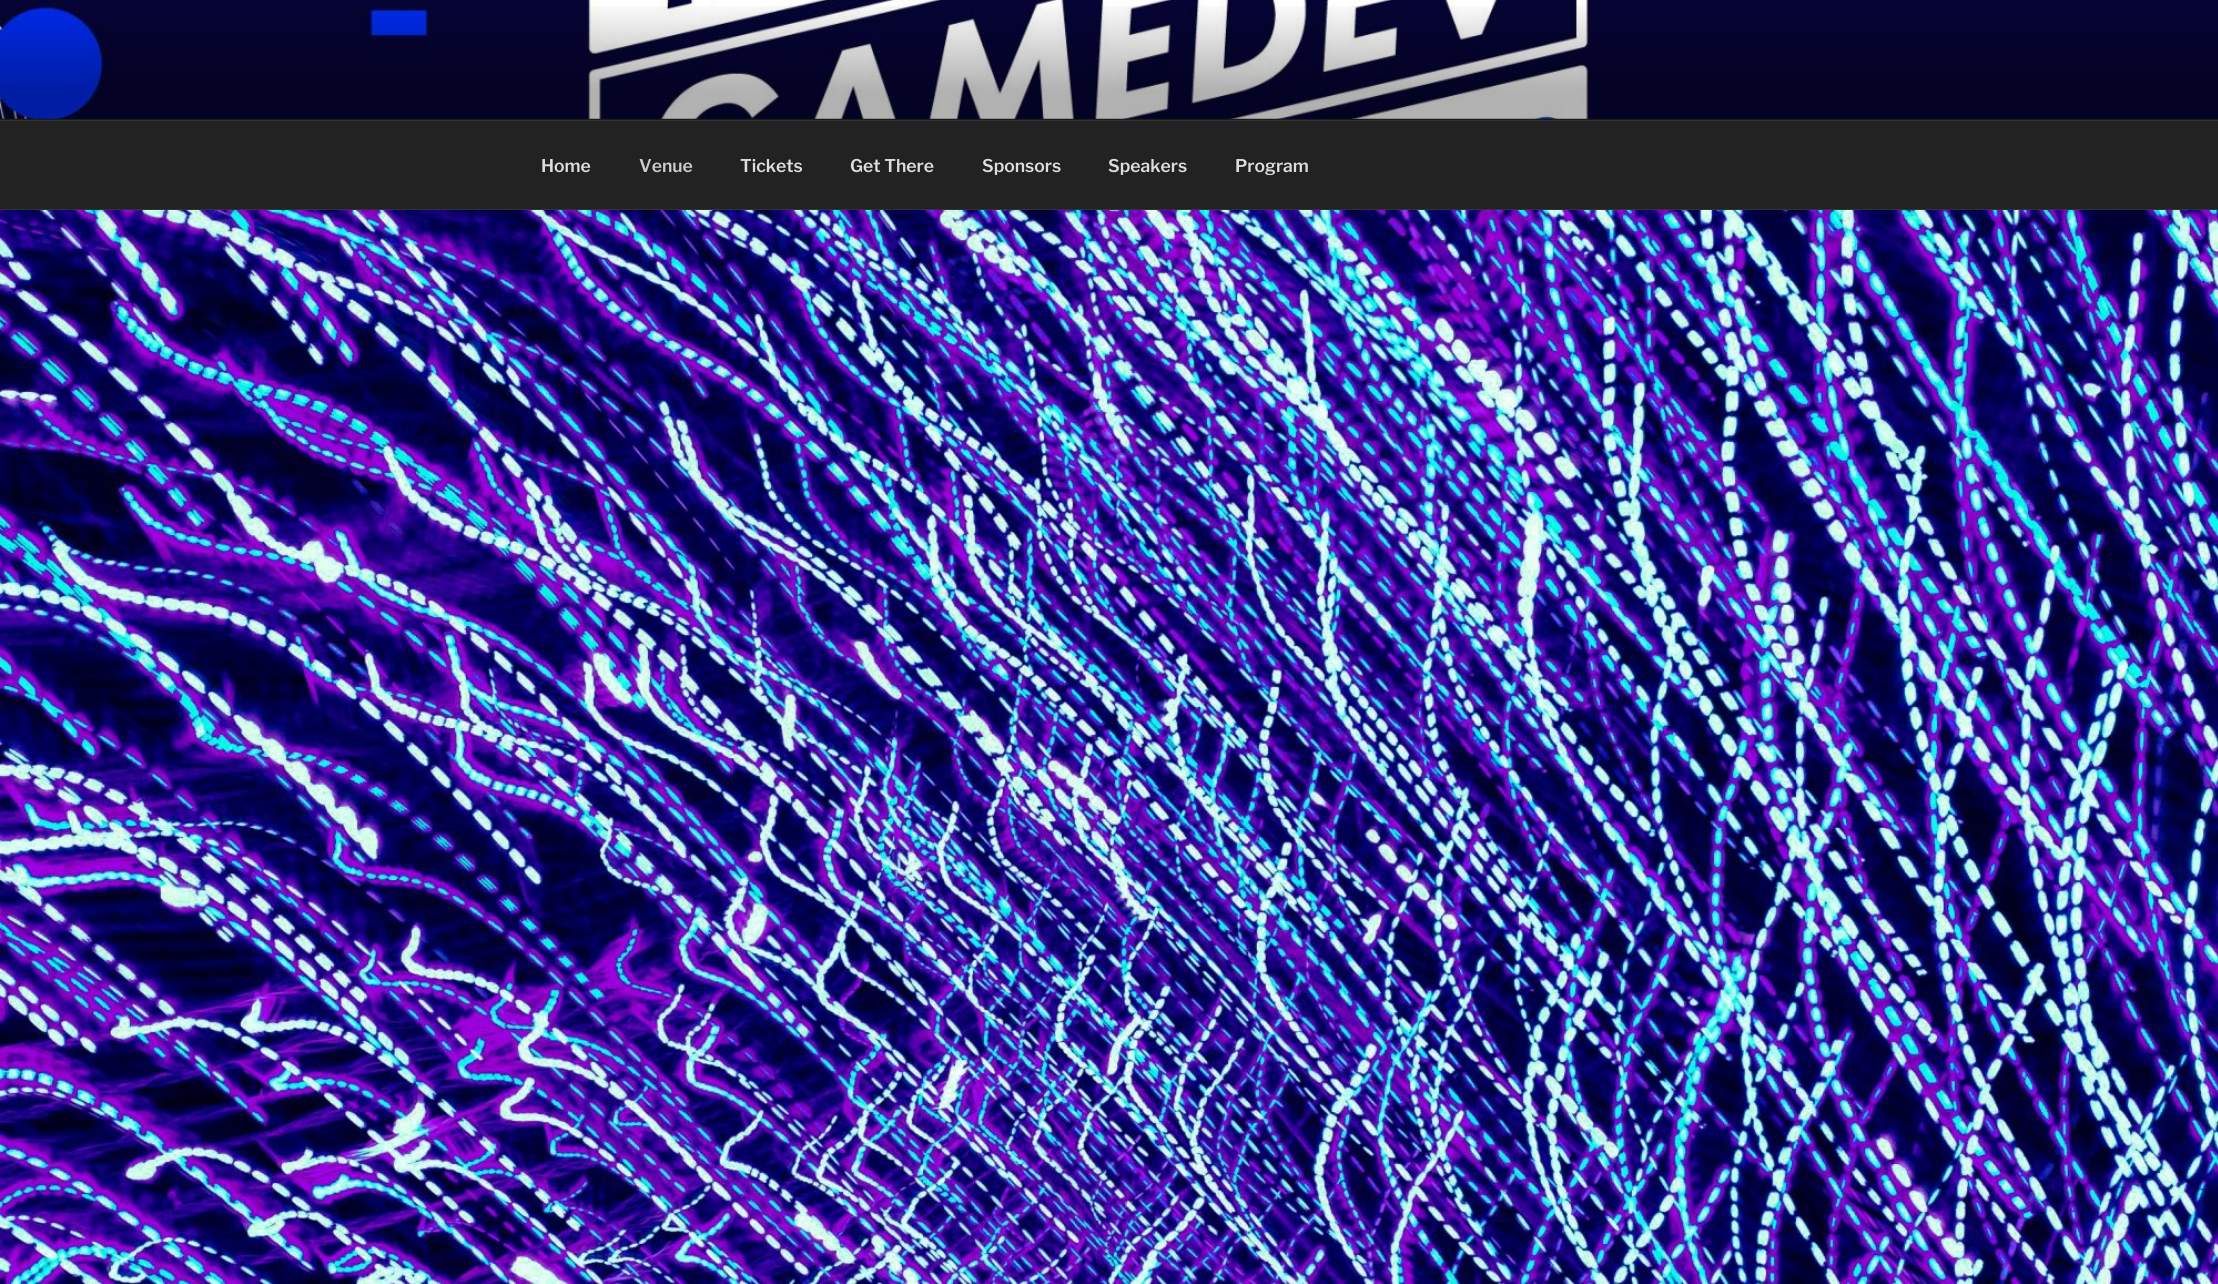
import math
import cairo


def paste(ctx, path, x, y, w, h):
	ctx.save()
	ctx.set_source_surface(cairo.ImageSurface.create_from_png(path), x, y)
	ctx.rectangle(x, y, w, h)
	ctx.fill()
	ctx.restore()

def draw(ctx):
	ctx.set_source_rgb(1, 1, 1)
	ctx.paint()
	ctx.set_source_rgb(0.149, 0.149, 0.149)
	ctx.rectangle(0, 118, 2218, 2)
	ctx.fill()
	paste(ctx, 'media/1.png', 0, 0, 2218, 119)
	gradient = cairo.LinearGradient(1109, 0, 1109, 120)
	gradient.add_color_stop_rgba(0, 0, 0, 0, 0)
	gradient.add_color_stop_rgba(0.75, 0, 0, 0, 0.3)
	gradient.add_color_stop_rgba(1, 0, 0, 0, 0.3)
	ctx.set_source(gradient)
	ctx.rectangle(0, 6, 2218, 114)
	ctx.fill()
	ctx.set_source_rgb(0.133, 0.133, 0.133)
	ctx.rectangle(0, 121, 2218, 88)
	ctx.fill()
	ctx.set_source_rgb(0.2, 0.2, 0.2)
	ctx.rectangle(0, 120, 2218, 1)
	ctx.rectangle(0, 209, 2218, 1)
	ctx.fill()
	ctx.select_font_face('Libre Franklin SemiBold')
	ctx.set_font_size(17.5)
	ctx.set_source_rgb(0.867, 0.867, 0.867)
	ctx.move_to(541, 172)
	ctx.show_text('Home')
	ctx.set_source_rgb(0.8, 0.8, 0.8)
	ctx.move_to(639, 172)
	ctx.show_text('Venue')
	ctx.set_source_rgb(0.867, 0.867, 0.867)
	for x, y, s in [
		(740, 172, 'Tickets'),
		(850, 172, 'Get There'),
		(982, 172, 'Sponsors'),
		(1108, 172, 'Speakers'),
		(1235, 172, 'Program'),
	]:
		ctx.move_to(x, y)
		ctx.show_text(s)
	paste(ctx, 'media/2.png', 0, 210, 2218, 1074)


surface = cairo.ImageSurface(cairo.FORMAT_RGB24, 2218, 1284)
ctx = cairo.Context(surface)
options = cairo.FontOptions()
options.set_hint_metrics(cairo.HINT_METRICS_OFF)
options.set_hint_style(cairo.HINT_STYLE_NONE)
ctx.set_font_options(options)
ctx.set_miter_limit(4)
draw(ctx)
surface.write_to_png('image.png')
